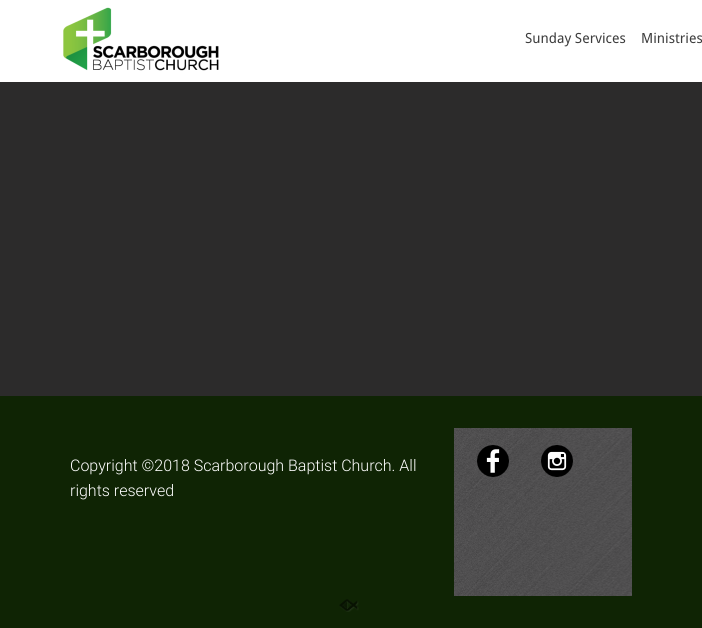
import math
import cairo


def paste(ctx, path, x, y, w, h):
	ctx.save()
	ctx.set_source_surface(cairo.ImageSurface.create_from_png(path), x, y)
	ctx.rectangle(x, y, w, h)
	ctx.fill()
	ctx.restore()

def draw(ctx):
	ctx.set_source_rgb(0.173, 0.169, 0.169)
	ctx.paint()
	ctx.set_source_rgb(1, 1, 1)
	ctx.rectangle(0, 0, 702, 82)
	ctx.fill()
	paste(ctx, 'media/1.png', 63, 7, 156, 64)
	ctx.select_font_face('Droid Sans')
	ctx.set_font_size(14)
	ctx.set_source_rgb(0.239, 0.239, 0.239)
	ctx.move_to(525, 43)
	ctx.show_text('Sunday Services')
	ctx.move_to(641, 43)
	ctx.show_text('Ministries')
	ctx.set_source_rgb(0.059, 0.141, 0.016)
	ctx.rectangle(0, 396, 702, 232)
	ctx.fill()
	ctx.select_font_face('Roboto Light')
	ctx.set_font_size(16)
	ctx.set_source_rgb(1, 1, 1)
	ctx.move_to(70, 471)
	ctx.show_text('Copyright ©2018 Scarborough Baptist Church. All')
	ctx.move_to(70, 496)
	ctx.show_text('rights reserved')
	ctx.set_source_rgb(0.631, 0.624, 0.631)
	ctx.rectangle(454, 428, 178, 168)
	ctx.fill()
	paste(ctx, 'media/2.png', 454, 428, 178, 168)
	paste(ctx, 'media/3.png', 477, 445, 32, 32)
	paste(ctx, 'media/4.png', 541, 445, 32, 32)
	paste(ctx, 'media/5.png', 339, 599, 20, 13)


surface = cairo.ImageSurface(cairo.FORMAT_RGB24, 702, 628)
ctx = cairo.Context(surface)
options = cairo.FontOptions()
options.set_hint_metrics(cairo.HINT_METRICS_OFF)
options.set_hint_style(cairo.HINT_STYLE_NONE)
ctx.set_font_options(options)
ctx.set_miter_limit(4)
draw(ctx)
surface.write_to_png('image.png')
